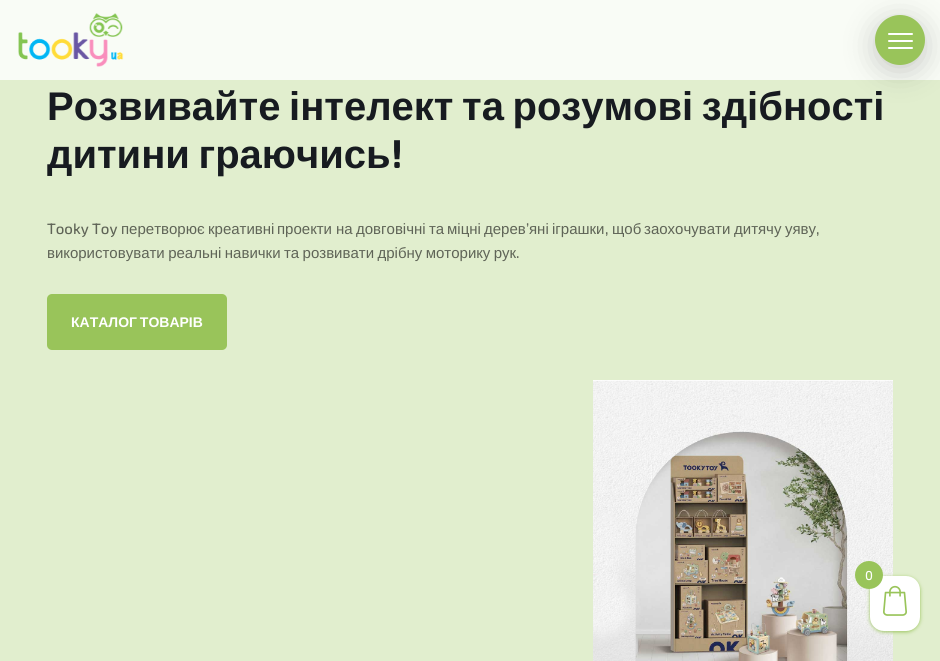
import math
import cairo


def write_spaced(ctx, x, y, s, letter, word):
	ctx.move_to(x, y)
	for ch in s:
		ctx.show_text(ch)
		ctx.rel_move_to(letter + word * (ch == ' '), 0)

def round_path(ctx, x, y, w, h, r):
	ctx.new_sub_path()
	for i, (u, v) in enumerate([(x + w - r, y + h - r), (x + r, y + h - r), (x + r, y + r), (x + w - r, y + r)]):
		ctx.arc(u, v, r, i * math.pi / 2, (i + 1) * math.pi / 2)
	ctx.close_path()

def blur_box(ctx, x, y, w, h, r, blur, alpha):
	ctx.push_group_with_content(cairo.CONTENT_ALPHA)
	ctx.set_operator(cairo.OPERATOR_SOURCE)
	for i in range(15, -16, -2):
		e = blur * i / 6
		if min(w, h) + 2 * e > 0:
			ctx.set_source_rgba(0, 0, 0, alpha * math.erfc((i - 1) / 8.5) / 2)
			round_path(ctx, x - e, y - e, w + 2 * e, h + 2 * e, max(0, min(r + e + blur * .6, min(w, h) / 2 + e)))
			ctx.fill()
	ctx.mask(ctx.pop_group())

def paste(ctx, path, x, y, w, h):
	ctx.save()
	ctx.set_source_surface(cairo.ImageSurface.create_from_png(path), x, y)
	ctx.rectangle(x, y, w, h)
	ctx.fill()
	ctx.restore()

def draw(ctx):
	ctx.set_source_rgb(0.882, 0.933, 0.808)
	ctx.paint()
	ctx.set_source_rgb(0.976, 0.988, 0.961)
	ctx.rectangle(0, 0, 940, 80)
	ctx.fill()
	paste(ctx, 'media/1.png', 18, 13, 106, 54)
	ctx.set_source_rgb(0, 0, 0)
	blur_box(ctx, 875, 21, 50, 50, 25, 15, 0.2)
	ctx.set_source_rgb(0.6, 0.769, 0.353)
	ctx.arc(900, 40, 25, 0, 2 * math.pi)
	ctx.fill()
	ctx.set_source_rgb(1, 1, 1)
	round_path(ctx, 888, 40, 25, 2, 1)
	ctx.fill()
	round_path(ctx, 888, 33, 25, 2, 1)
	ctx.fill()
	round_path(ctx, 888, 47, 25, 2, 1)
	ctx.fill()
	ctx.select_font_face('Liberation Sans', cairo.FONT_SLANT_NORMAL, cairo.FONT_WEIGHT_BOLD)
	ctx.set_font_size(40)
	ctx.set_source_rgb(0.09, 0.106, 0.125)
	write_spaced(ctx, 47, 120, 'Розвивайте інтелект та розумові здібності', 0, -2.5)
	write_spaced(ctx, 47, 168, 'дитини граючись', 0, -2.5)
	ctx.select_font_face('Exo 2', cairo.FONT_SLANT_NORMAL, cairo.FONT_WEIGHT_BOLD)
	ctx.move_to(391, 168)
	ctx.show_text('!')
	ctx.select_font_face('Exo 2 Medium')
	ctx.set_font_size(15)
	ctx.set_source_rgb(0.373, 0.392, 0.341)
	ctx.move_to(47, 234)
	ctx.show_text('Tooky Toy')
	ctx.select_font_face('Liberation Sans')
	for x, y, s in [
		(121, 234, 'перетворює'),
		(208, 234, 'креативні'),
		(277, 234, 'проекти'),
		(336, 234, 'на'),
		(356, 234, 'довговічні'),
		(429, 234, 'та'),
		(447, 234, 'міцні'),
		(484, 234, 'дерев'),
	]:
		ctx.move_to(x, y)
		ctx.show_text(s)
	ctx.select_font_face('Exo 2 Medium')
	ctx.move_to(526, 234)
	ctx.show_text('’')
	ctx.select_font_face('Liberation Sans')
	ctx.move_to(529, 234)
	ctx.show_text('яні')
	ctx.move_to(552, 234)
	ctx.show_text('іграшки')
	ctx.select_font_face('Exo 2 Medium')
	ctx.move_to(605, 234)
	ctx.show_text(',')
	ctx.select_font_face('Liberation Sans')
	for x, y, s in [
		(612, 234, 'щоб'),
		(644, 234, 'заохочувати'),
		(734, 234, 'дитячу'),
		(785, 234, 'уяву'),
	]:
		ctx.move_to(x, y)
		ctx.show_text(s)
	ctx.select_font_face('Exo 2 Medium')
	ctx.move_to(816, 234)
	ctx.show_text(',')
	ctx.select_font_face('Liberation Sans')
	write_spaced(ctx, 47, 258, 'використовувати реальні навички та розвивати дрібну моторику рук', 0, -0.75)
	ctx.select_font_face('Exo 2 Medium')
	ctx.move_to(516, 258)
	ctx.show_text('.')
	ctx.set_source_rgb(0.6, 0.769, 0.353)
	round_path(ctx, 47, 294, 180, 56, 5)
	ctx.fill()
	ctx.select_font_face('Liberation Sans', cairo.FONT_SLANT_NORMAL, cairo.FONT_WEIGHT_BOLD)
	ctx.set_font_size(14)
	ctx.set_source_rgb(1, 1, 1)
	write_spaced(ctx, 71, 327, 'КАТАЛОГ ТОВАРІВ', 0, -1)
	paste(ctx, 'media/2.png', 593, 380, 300, 281)
	ctx.set_source_rgb(0.6, 0.769, 0.353)
	blur_box(ctx, 870, 577, 50, 55, 14, 2, 1)
	ctx.set_source_rgb(1, 1, 1)
	round_path(ctx, 870, 576, 50, 55, 14)
	ctx.fill()
	ctx.set_source_rgb(0.6, 0.769, 0.353)
	ctx.arc(869, 575, 14, 0, 2 * math.pi)
	ctx.fill()
	ctx.select_font_face('Exo 2 Medium')
	ctx.set_font_size(13)
	ctx.set_source_rgb(1, 1, 1)
	ctx.move_to(865, 580)
	ctx.show_text('0')
	paste(ctx, 'media/3.png', 883, 585, 24, 31)


surface = cairo.ImageSurface(cairo.FORMAT_RGB24, 940, 661)
ctx = cairo.Context(surface)
options = cairo.FontOptions()
options.set_hint_metrics(cairo.HINT_METRICS_OFF)
options.set_hint_style(cairo.HINT_STYLE_NONE)
ctx.set_font_options(options)
ctx.set_miter_limit(4)
draw(ctx)
surface.write_to_png('image.png')
